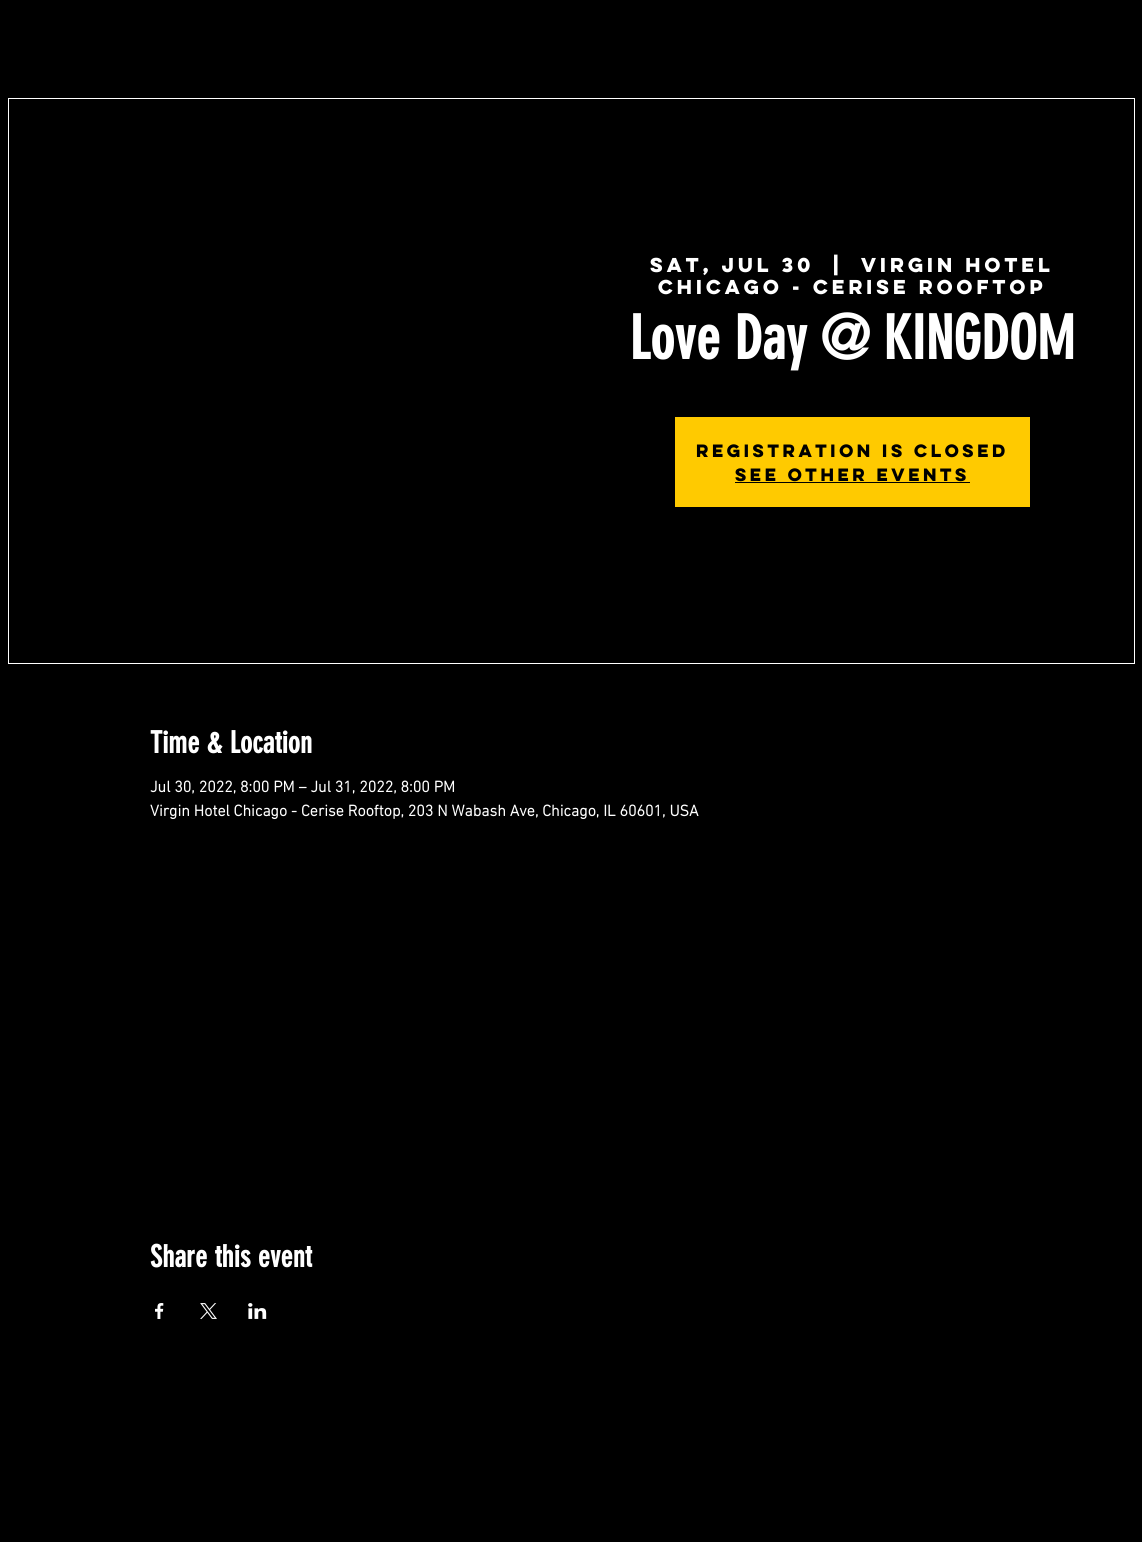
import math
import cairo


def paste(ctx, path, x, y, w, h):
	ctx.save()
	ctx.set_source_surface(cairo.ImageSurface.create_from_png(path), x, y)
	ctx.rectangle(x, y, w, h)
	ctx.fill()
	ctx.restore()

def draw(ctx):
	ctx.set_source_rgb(0, 0, 0)
	ctx.paint()
	ctx.rectangle(8.5, 98.5, 1126, 565)
	ctx.set_source_rgb(1, 1, 1)
	ctx.set_line_width(1)
	ctx.stroke()
	ctx.select_font_face('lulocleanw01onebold', cairo.FONT_SLANT_NORMAL, cairo.FONT_WEIGHT_BOLD)
	ctx.set_font_size(18)
	for x, y, s in [
		(650, 272, 'Sat, Jul 30'),
		(833, 272, '|'),
		(861, 272, 'Virgin Hotel'),
		(658, 294, 'Chicago - Cerise Rooftop'),
	]:
		ctx.move_to(x, y)
		ctx.show_text(s)
	ctx.select_font_face('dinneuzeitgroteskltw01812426', cairo.FONT_SLANT_NORMAL, cairo.FONT_WEIGHT_BOLD)
	ctx.set_font_size(60)
	ctx.move_to(629, 359)
	ctx.show_text('Love Day @ KINGDOM')
	ctx.set_source_rgb(1, 0.792, 0)
	ctx.rectangle(675, 417, 355, 90)
	ctx.fill()
	ctx.select_font_face('lulocleanw01onebold', cairo.FONT_SLANT_NORMAL, cairo.FONT_WEIGHT_BOLD)
	ctx.set_font_size(16)
	ctx.set_source_rgb(0, 0, 0)
	ctx.move_to(696, 457)
	ctx.show_text('Registration is closed')
	ctx.move_to(735, 481)
	ctx.show_text('See other events')
	ctx.rectangle(735, 482, 235, 1)
	ctx.fill()
	ctx.select_font_face('dinneuzeitgroteskltw01812426', cairo.FONT_SLANT_NORMAL, cairo.FONT_WEIGHT_BOLD)
	ctx.set_font_size(30)
	ctx.set_source_rgb(1, 1, 1)
	ctx.move_to(150, 753)
	ctx.show_text('Time & Location')
	ctx.select_font_face('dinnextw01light', cairo.FONT_SLANT_NORMAL, cairo.FONT_WEIGHT_BOLD)
	ctx.set_font_size(16)
	ctx.move_to(150, 792)
	ctx.show_text('Jul 30, 2022, 8:00 PM – Jul 31, 2022, 8:00 PM')
	ctx.move_to(150, 816)
	ctx.show_text('Virgin Hotel Chicago - Cerise Rooftop, 203 N Wabash Ave, Chicago, IL 60601, USA')
	ctx.select_font_face('dinneuzeitgroteskltw01812426', cairo.FONT_SLANT_NORMAL, cairo.FONT_WEIGHT_BOLD)
	ctx.set_font_size(30)
	ctx.move_to(150, 1267)
	ctx.show_text('Share this event')
	paste(ctx, 'media/1.png', 155, 1303, 9, 16)
	paste(ctx, 'media/2.png', 200, 1303, 17, 16)
	paste(ctx, 'media/3.png', 248, 1303, 19, 16)


surface = cairo.ImageSurface(cairo.FORMAT_RGB24, 1142, 1542)
ctx = cairo.Context(surface)
options = cairo.FontOptions()
options.set_hint_metrics(cairo.HINT_METRICS_OFF)
options.set_hint_style(cairo.HINT_STYLE_NONE)
ctx.set_font_options(options)
ctx.set_miter_limit(4)
draw(ctx)
surface.write_to_png('image.png')
